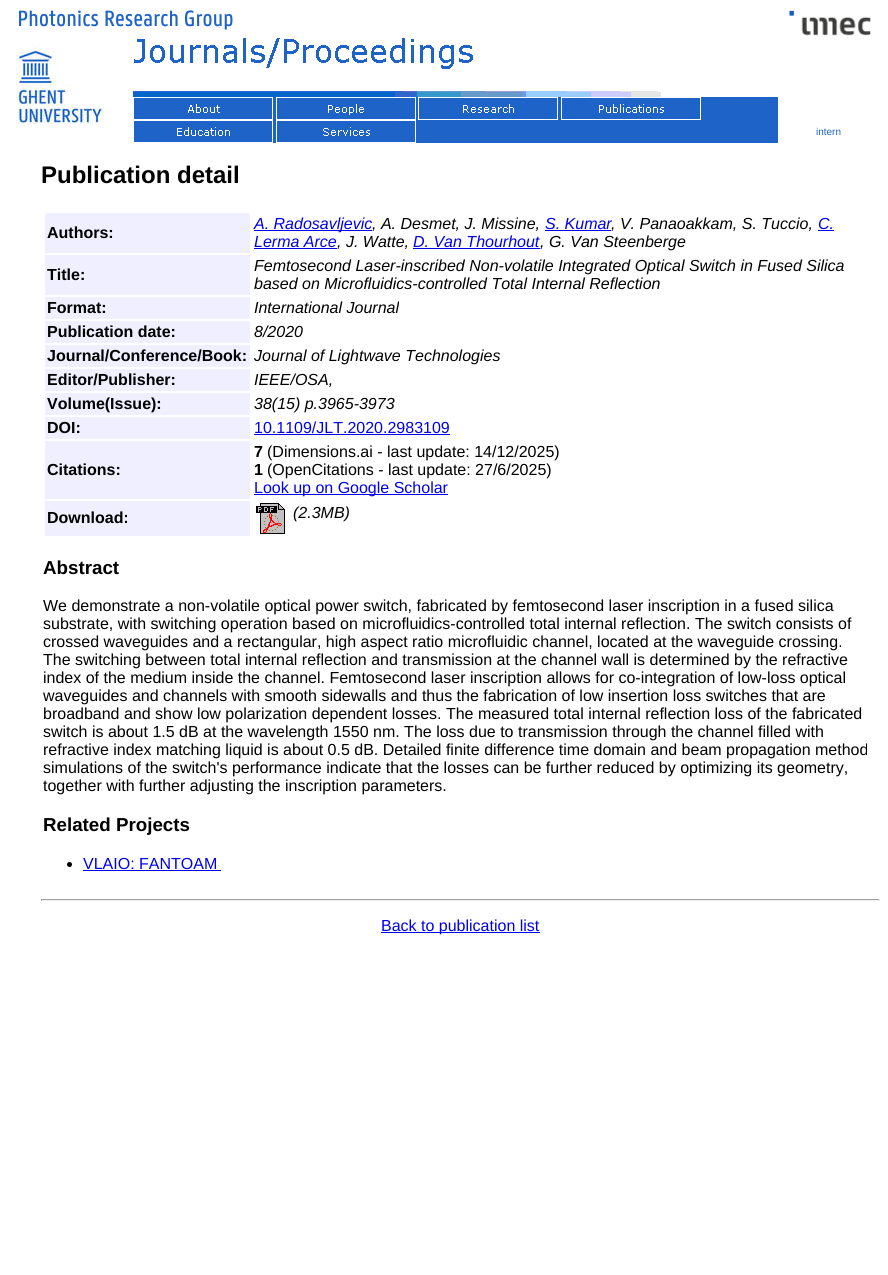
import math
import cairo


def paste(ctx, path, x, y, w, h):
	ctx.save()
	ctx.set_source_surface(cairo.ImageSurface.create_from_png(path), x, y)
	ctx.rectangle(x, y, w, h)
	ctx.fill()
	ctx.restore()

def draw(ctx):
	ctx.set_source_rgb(1, 1, 1)
	ctx.paint()
	paste(ctx, 'media/1.png', 19, 10, 214, 20)
	paste(ctx, 'media/2.png', 16, 44, 88, 80)
	paste(ctx, 'media/3.png', 133, 38, 528, 59)
	ctx.set_source_rgb(0.114, 0.388, 0.784)
	ctx.rectangle(273, 97, 505, 46)
	ctx.fill()
	paste(ctx, 'media/4.png', 133, 97, 140, 23)
	paste(ctx, 'media/5.png', 276, 97, 140, 23)
	paste(ctx, 'media/6.png', 418, 97, 140, 23)
	paste(ctx, 'media/7.png', 561, 97, 140, 23)
	paste(ctx, 'media/8.png', 133, 120, 140, 23)
	paste(ctx, 'media/9.png', 276, 120, 140, 23)
	paste(ctx, 'media/10.png', 788, 10, 83, 26)
	ctx.select_font_face('Liberation Sans')
	ctx.set_font_size(10)
	ctx.move_to(816, 135)
	ctx.show_text('intern')
	ctx.select_font_face('Liberation Sans', cairo.FONT_SLANT_NORMAL, cairo.FONT_WEIGHT_BOLD)
	ctx.set_font_size(24)
	ctx.set_source_rgb(0, 0, 0)
	ctx.move_to(41, 183)
	ctx.show_text('Publication detail')
	ctx.set_source_rgb(0.937, 0.937, 1)
	ctx.rectangle(45, 213, 205, 40)
	ctx.fill()
	ctx.set_font_size(16)
	ctx.set_source_rgb(0, 0, 0)
	ctx.move_to(47, 238)
	ctx.show_text('Authors:')
	ctx.set_source_rgb(0, 0, 0.933)
	ctx.rectangle(254, 230, 118, 1)
	ctx.fill()
	ctx.select_font_face('Liberation Sans', cairo.FONT_SLANT_ITALIC)
	ctx.move_to(254, 229)
	ctx.show_text('A. Radosavljevic')
	ctx.set_source_rgb(0, 0, 0)
	ctx.move_to(372, 229)
	ctx.show_text(', A. Desmet, J. Missine,')
	ctx.set_source_rgb(0, 0, 0.933)
	ctx.move_to(545, 229)
	ctx.show_text('S. Kumar')
	ctx.set_source_rgb(0, 0, 0)
	ctx.move_to(611, 229)
	ctx.show_text(', V. Panaoakkam, S. Tuccio,')
	ctx.set_source_rgb(0, 0, 0.933)
	ctx.rectangle(545, 230, 66, 1)
	ctx.fill()
	ctx.move_to(818, 229)
	ctx.show_text('C.')
	ctx.rectangle(818, 230, 16, 1)
	ctx.fill()
	ctx.move_to(254, 247)
	ctx.show_text('Lerma Arce')
	ctx.set_source_rgb(0, 0, 0)
	ctx.move_to(337, 247)
	ctx.show_text(', J. Watte,')
	ctx.set_source_rgb(0, 0, 0.933)
	ctx.rectangle(254, 248, 83, 1)
	ctx.fill()
	ctx.move_to(413, 247)
	ctx.show_text('D. Van Thourhout')
	ctx.rectangle(413, 248, 127, 1)
	ctx.fill()
	ctx.set_source_rgb(0, 0, 0)
	ctx.move_to(540, 247)
	ctx.show_text(', G. Van Steenberge')
	ctx.set_source_rgb(0.937, 0.937, 1)
	ctx.rectangle(45, 255, 205, 40)
	ctx.fill()
	ctx.select_font_face('Liberation Sans', cairo.FONT_SLANT_NORMAL, cairo.FONT_WEIGHT_BOLD)
	ctx.set_source_rgb(0, 0, 0)
	ctx.move_to(47, 280)
	ctx.show_text('Title:')
	ctx.select_font_face('Liberation Sans', cairo.FONT_SLANT_ITALIC)
	ctx.move_to(254, 271)
	ctx.show_text('Femtosecond Laser-inscribed Non-volatile Integrated Optical Switch in Fused Silica')
	ctx.move_to(254, 289)
	ctx.show_text('based on Microfluidics-controlled Total Internal Reflection')
	ctx.set_source_rgb(0.937, 0.937, 1)
	ctx.rectangle(45, 297, 205, 22)
	ctx.fill()
	ctx.select_font_face('Liberation Sans', cairo.FONT_SLANT_NORMAL, cairo.FONT_WEIGHT_BOLD)
	ctx.set_source_rgb(0, 0, 0)
	ctx.move_to(47, 313)
	ctx.show_text('Format:')
	ctx.select_font_face('Liberation Sans', cairo.FONT_SLANT_ITALIC)
	ctx.move_to(254, 313)
	ctx.show_text('International Journal')
	ctx.set_source_rgb(0.937, 0.937, 1)
	ctx.rectangle(45, 321, 205, 22)
	ctx.fill()
	ctx.select_font_face('Liberation Sans', cairo.FONT_SLANT_NORMAL, cairo.FONT_WEIGHT_BOLD)
	ctx.set_source_rgb(0, 0, 0)
	ctx.move_to(47, 337)
	ctx.show_text('Publication date:')
	ctx.select_font_face('Liberation Sans', cairo.FONT_SLANT_ITALIC)
	ctx.move_to(254, 337)
	ctx.show_text('8/2020')
	ctx.set_source_rgb(0.937, 0.937, 1)
	ctx.rectangle(45, 345, 205, 22)
	ctx.fill()
	ctx.select_font_face('Liberation Sans', cairo.FONT_SLANT_NORMAL, cairo.FONT_WEIGHT_BOLD)
	ctx.set_source_rgb(0, 0, 0)
	ctx.move_to(47, 361)
	ctx.show_text('Journal/Conference/Book:')
	ctx.select_font_face('Liberation Sans', cairo.FONT_SLANT_ITALIC)
	ctx.move_to(254, 361)
	ctx.show_text('Journal of Lightwave Technologies')
	ctx.set_source_rgb(0.937, 0.937, 1)
	ctx.rectangle(45, 369, 205, 22)
	ctx.fill()
	ctx.select_font_face('Liberation Sans', cairo.FONT_SLANT_NORMAL, cairo.FONT_WEIGHT_BOLD)
	ctx.set_source_rgb(0, 0, 0)
	ctx.move_to(47, 385)
	ctx.show_text('Editor/Publisher:')
	ctx.select_font_face('Liberation Sans', cairo.FONT_SLANT_ITALIC)
	ctx.move_to(254, 385)
	ctx.show_text('IEEE/OSA,')
	ctx.set_source_rgb(0.937, 0.937, 1)
	ctx.rectangle(45, 393, 205, 22)
	ctx.fill()
	ctx.select_font_face('Liberation Sans', cairo.FONT_SLANT_NORMAL, cairo.FONT_WEIGHT_BOLD)
	ctx.set_source_rgb(0, 0, 0)
	ctx.move_to(47, 409)
	ctx.show_text('Volume(Issue):')
	ctx.select_font_face('Liberation Sans', cairo.FONT_SLANT_ITALIC)
	ctx.move_to(254, 409)
	ctx.show_text('38(15) p.3965-3973')
	ctx.set_source_rgb(0.937, 0.937, 1)
	ctx.rectangle(45, 417, 205, 22)
	ctx.fill()
	ctx.select_font_face('Liberation Sans', cairo.FONT_SLANT_NORMAL, cairo.FONT_WEIGHT_BOLD)
	ctx.set_source_rgb(0, 0, 0)
	ctx.move_to(47, 433)
	ctx.show_text('DOI:')
	ctx.select_font_face('Liberation Sans')
	ctx.set_source_rgb(0, 0, 0.933)
	ctx.move_to(254, 433)
	ctx.show_text('10.1109/JLT.2020.2983109')
	ctx.rectangle(254, 434, 196, 1)
	ctx.fill()
	ctx.set_source_rgb(0.937, 0.937, 1)
	ctx.rectangle(45, 441, 205, 58)
	ctx.fill()
	ctx.select_font_face('Liberation Sans', cairo.FONT_SLANT_NORMAL, cairo.FONT_WEIGHT_BOLD)
	ctx.set_source_rgb(0, 0, 0)
	ctx.move_to(47, 475)
	ctx.show_text('Citations:')
	ctx.move_to(254, 457)
	ctx.show_text('7')
	ctx.select_font_face('Liberation Sans')
	ctx.move_to(267, 457)
	ctx.show_text('(Dimensions.ai - last update: 14/12/2025)')
	ctx.select_font_face('Liberation Sans', cairo.FONT_SLANT_NORMAL, cairo.FONT_WEIGHT_BOLD)
	ctx.move_to(254, 475)
	ctx.show_text('1')
	ctx.select_font_face('Liberation Sans')
	ctx.move_to(267, 475)
	ctx.show_text('(OpenCitations - last update: 27/6/2025)')
	ctx.set_source_rgb(0, 0, 0.933)
	ctx.rectangle(254, 494, 194, 1)
	ctx.fill()
	ctx.move_to(254, 493)
	ctx.show_text('Look up on Google Scholar')
	ctx.set_source_rgb(0.937, 0.937, 1)
	ctx.rectangle(45, 501, 205, 35)
	ctx.fill()
	ctx.select_font_face('Liberation Sans', cairo.FONT_SLANT_NORMAL, cairo.FONT_WEIGHT_BOLD)
	ctx.set_source_rgb(0, 0, 0)
	ctx.move_to(47, 523)
	ctx.show_text('Download:')
	paste(ctx, 'media/11.png', 256, 503, 29, 31)
	ctx.select_font_face('Liberation Sans', cairo.FONT_SLANT_ITALIC)
	ctx.move_to(293, 518)
	ctx.show_text('(2.3MB)')
	ctx.select_font_face('Liberation Sans', cairo.FONT_SLANT_NORMAL, cairo.FONT_WEIGHT_BOLD)
	ctx.set_font_size(18.75)
	ctx.move_to(43, 574)
	ctx.show_text('Abstract')
	ctx.select_font_face('Liberation Sans')
	ctx.set_font_size(16)
	for x, y, s in [
		(43, 611, 'We demonstrate a non-volatile optical power switch, fabricated by femtosecond laser inscription in a fused silica'),
		(43, 629, 'substrate, with switching operation based on microfluidics-controlled total internal reflection. The switch consists of'),
		(43, 647, 'crossed waveguides and a rectangular, high aspect ratio microfluidic channel, located at the waveguide crossing.'),
		(43, 665, 'The switching between total internal reflection and transmission at the channel wall is determined by the refractive'),
		(43, 683, 'index of the medium inside the channel. Femtosecond laser inscription allows for co-integration of low-loss optical'),
		(43, 701, 'waveguides and channels with smooth sidewalls and thus the fabrication of low insertion loss switches that are'),
		(43, 719, 'broadband and show low polarization dependent losses. The measured total internal reflection loss of the fabricated'),
		(43, 737, 'switch is about 1.5 dB at the wavelength 1550 nm. The loss due to transmission through the channel filled with'),
		(43, 755, 'refractive index matching liquid is about 0.5 dB. Detailed finite difference time domain and beam propagation method'),
		(43, 773, 'simulations of the switch\'s performance indicate that the losses can be further reduced by optimizing its geometry,'),
		(43, 791, 'together with further adjusting the inscription parameters.'),
	]:
		ctx.move_to(x, y)
		ctx.show_text(s)
	ctx.select_font_face('Liberation Sans', cairo.FONT_SLANT_NORMAL, cairo.FONT_WEIGHT_BOLD)
	ctx.set_font_size(18.75)
	ctx.move_to(43, 831)
	ctx.show_text('Related Projects')
	ctx.new_path()
	ctx.arc(69.5, 864.5, 2.5, 0, 2 * math.pi)
	ctx.fill()
	ctx.select_font_face('Liberation Sans')
	ctx.set_font_size(16)
	ctx.set_source_rgb(0, 0, 0.933)
	ctx.move_to(83, 869)
	ctx.show_text('VLAIO: FANTOAM')
	ctx.rectangle(83, 870, 138, 1)
	ctx.fill()
	ctx.set_source_rgb(0.624, 0.624, 0.624)
	ctx.rectangle(41, 899, 839, 1)
	ctx.fill()
	ctx.set_source_rgb(0.933, 0.933, 0.933)
	ctx.rectangle(879, 899, 1, 2)
	ctx.rectangle(41, 900, 839, 1)
	ctx.fill()
	ctx.set_source_rgb(0.624, 0.624, 0.624)
	ctx.rectangle(41, 899, 1, 2)
	ctx.fill()
	ctx.set_source_rgb(0, 0, 0.933)
	ctx.rectangle(381, 932, 159, 1)
	ctx.fill()
	ctx.move_to(381, 931)
	ctx.show_text('Back to publication list')


surface = cairo.ImageSurface(cairo.FORMAT_RGB24, 888, 1275)
ctx = cairo.Context(surface)
options = cairo.FontOptions()
options.set_hint_metrics(cairo.HINT_METRICS_OFF)
options.set_hint_style(cairo.HINT_STYLE_NONE)
ctx.set_font_options(options)
ctx.set_miter_limit(4)
draw(ctx)
surface.write_to_png('image.png')
